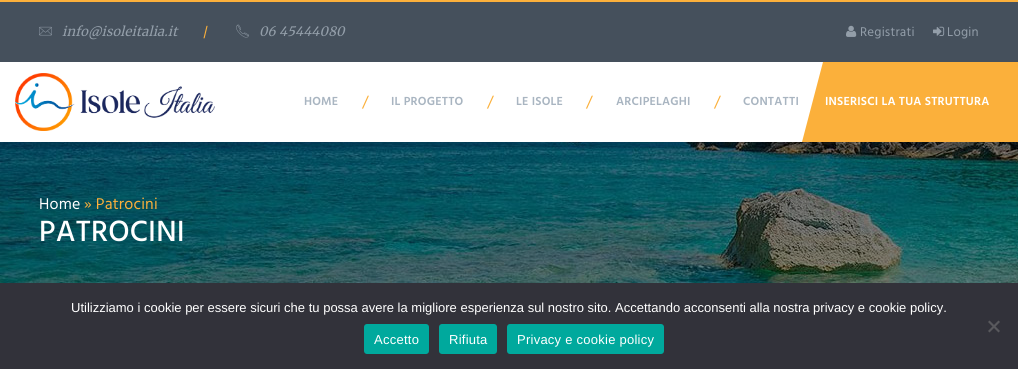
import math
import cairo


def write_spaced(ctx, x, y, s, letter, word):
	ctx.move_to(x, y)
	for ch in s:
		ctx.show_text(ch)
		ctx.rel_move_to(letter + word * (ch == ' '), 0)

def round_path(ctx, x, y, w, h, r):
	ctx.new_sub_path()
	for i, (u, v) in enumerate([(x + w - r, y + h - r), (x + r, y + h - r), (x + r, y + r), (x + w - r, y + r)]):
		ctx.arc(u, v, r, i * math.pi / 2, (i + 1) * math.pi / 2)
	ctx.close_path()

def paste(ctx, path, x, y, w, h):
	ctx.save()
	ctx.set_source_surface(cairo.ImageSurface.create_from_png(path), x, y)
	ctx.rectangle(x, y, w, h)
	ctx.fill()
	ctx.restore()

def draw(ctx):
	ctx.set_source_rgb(1, 1, 1)
	ctx.paint()
	ctx.set_source_rgb(0.271, 0.314, 0.361)
	ctx.rectangle(0, 2, 1018, 60)
	ctx.fill()
	ctx.set_source_rgb(0.984, 0.69, 0.231)
	ctx.rectangle(0, 0, 1018, 2)
	ctx.fill()
	paste(ctx, 'media/1.png', 39, 26, 13, 10)
	ctx.select_font_face('Merriweather Light', cairo.FONT_SLANT_ITALIC)
	ctx.set_font_size(13)
	ctx.set_source_rgb(0.576, 0.62, 0.663)
	write_spaced(ctx, 62, 36, 'info@isoleitalia.it', 0.2, 0)
	ctx.select_font_face('Merriweather Light')
	ctx.set_source_rgb(0.984, 0.69, 0.231)
	write_spaced(ctx, 203, 36, '/', 0.2, 0)
	paste(ctx, 'media/2.png', 236, 24, 13, 14)
	ctx.select_font_face('Merriweather Light', cairo.FONT_SLANT_ITALIC)
	ctx.set_source_rgb(0.576, 0.62, 0.663)
	write_spaced(ctx, 259, 36, '06 45444080', 0.2, 0)
	paste(ctx, 'media/3.png', 846, 25, 11, 12)
	ctx.select_font_face('Hind Siliguri')
	write_spaced(ctx, 860, 36, 'Registrati', 0.2, 0)
	paste(ctx, 'media/4.png', 933, 26, 12, 10)
	write_spaced(ctx, 947, 36, 'Login', 0.2, 0)
	paste(ctx, 'media/5.png', 15, 73, 200, 58)
	ctx.select_font_face('Hind Siliguri SemiBold')
	ctx.set_font_size(12)
	ctx.set_source_rgb(0.663, 0.71, 0.757)
	write_spaced(ctx, 304, 105, 'HOME', 0.2, 0)
	ctx.select_font_face('Hind Siliguri')
	ctx.set_font_size(16)
	ctx.set_source_rgb(0.984, 0.69, 0.231)
	write_spaced(ctx, 362, 107, '/', 0.2, 0)
	ctx.select_font_face('Hind Siliguri SemiBold')
	ctx.set_font_size(12)
	ctx.set_source_rgb(0.663, 0.71, 0.757)
	write_spaced(ctx, 391, 105, 'IL PROGETTO', 0.2, 0)
	ctx.select_font_face('Hind Siliguri')
	ctx.set_font_size(16)
	ctx.set_source_rgb(0.984, 0.69, 0.231)
	write_spaced(ctx, 487, 107, '/', 0.2, 0)
	ctx.select_font_face('Hind Siliguri SemiBold')
	ctx.set_font_size(12)
	ctx.set_source_rgb(0.663, 0.71, 0.757)
	write_spaced(ctx, 516, 105, 'LE ISOLE', 0.2, 0)
	ctx.select_font_face('Hind Siliguri')
	ctx.set_font_size(16)
	ctx.set_source_rgb(0.984, 0.69, 0.231)
	write_spaced(ctx, 586, 107, '/', 0.2, 0)
	ctx.select_font_face('Hind Siliguri SemiBold')
	ctx.set_font_size(12)
	ctx.set_source_rgb(0.663, 0.71, 0.757)
	write_spaced(ctx, 616, 105, 'ARCIPELAGHI', 0.2, 0)
	ctx.select_font_face('Hind Siliguri')
	ctx.set_font_size(16)
	ctx.set_source_rgb(0.984, 0.69, 0.231)
	write_spaced(ctx, 714, 107, '/', 0.2, 0)
	ctx.select_font_face('Hind Siliguri SemiBold')
	ctx.set_font_size(12)
	ctx.set_source_rgb(0.663, 0.71, 0.757)
	write_spaced(ctx, 743, 105, 'CONTATTI', 0.2, 0)
	ctx.set_source_rgb(0.984, 0.69, 0.231)
	ctx.new_path()
	ctx.move_to(823, 62)
	ctx.line_to(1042, 62)
	ctx.line_to(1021, 142)
	ctx.line_to(802, 142)
	ctx.close_path()
	ctx.fill()
	ctx.set_source_rgb(1, 1, 1)
	write_spaced(ctx, 825, 105, 'INSERISCI LA TUA STRUTTURA', 0.2, 0)
	paste(ctx, 'media/6.png', 0, 142, 1018, 141)
	ctx.select_font_face('Hind Siliguri')
	ctx.set_font_size(16)
	write_spaced(ctx, 39, 209, 'Home', 0.2, 0)
	ctx.set_source_rgb(0.984, 0.69, 0.231)
	write_spaced(ctx, 84, 209, '» Patrocini', 0.2, 0)
	ctx.select_font_face('Hind Siliguri Medium')
	ctx.set_font_size(30)
	ctx.set_source_rgb(1, 1, 1)
	write_spaced(ctx, 39, 241, 'PATROCINI', 0.2, 0)
	ctx.set_source_rgb(0.196, 0.196, 0.227)
	ctx.rectangle(0, 283, 1018, 86)
	ctx.fill()
	ctx.select_font_face('Liberation Sans')
	ctx.set_font_size(13)
	ctx.set_source_rgb(1, 1, 1)
	ctx.move_to(71, 312)
	ctx.show_text('Utilizziamo i cookie per essere sicuri che tu possa avere la migliore esperienza sul nostro sito. Accettando acconsenti alla nostra privacy e cookie policy.')
	ctx.set_source_rgb(0.349, 0.349, 0.365)
	ctx.new_path()
	ctx.move_to(998.5, 320.5)
	ctx.line_to(1000, 322)
	ctx.line_to(989.5, 332.5)
	ctx.line_to(988, 331)
	ctx.close_path()
	ctx.fill()
	ctx.new_path()
	ctx.move_to(988, 322)
	ctx.line_to(989.5, 320.5)
	ctx.line_to(1000, 331)
	ctx.line_to(998.5, 332.5)
	ctx.close_path()
	ctx.fill()
	ctx.set_source_rgb(0, 0.663, 0.616)
	round_path(ctx, 364, 324, 65, 30, 3)
	ctx.fill()
	ctx.set_source_rgb(1, 1, 1)
	write_spaced(ctx, 374, 344, 'Accetto', 0.25, 0)
	ctx.set_source_rgb(0, 0.663, 0.616)
	round_path(ctx, 439, 324, 58, 30, 3)
	ctx.fill()
	ctx.set_source_rgb(1, 1, 1)
	write_spaced(ctx, 449, 344, 'Rifiuta', 0.25, 0)
	ctx.set_source_rgb(0, 0.663, 0.616)
	round_path(ctx, 507, 324, 157, 30, 3)
	ctx.fill()
	ctx.set_source_rgb(1, 1, 1)
	write_spaced(ctx, 517, 344, 'Privacy e cookie policy', 0.25, 0)


surface = cairo.ImageSurface(cairo.FORMAT_RGB24, 1018, 369)
ctx = cairo.Context(surface)
options = cairo.FontOptions()
options.set_hint_metrics(cairo.HINT_METRICS_OFF)
options.set_hint_style(cairo.HINT_STYLE_NONE)
ctx.set_font_options(options)
ctx.set_miter_limit(4)
draw(ctx)
surface.write_to_png('image.png')
